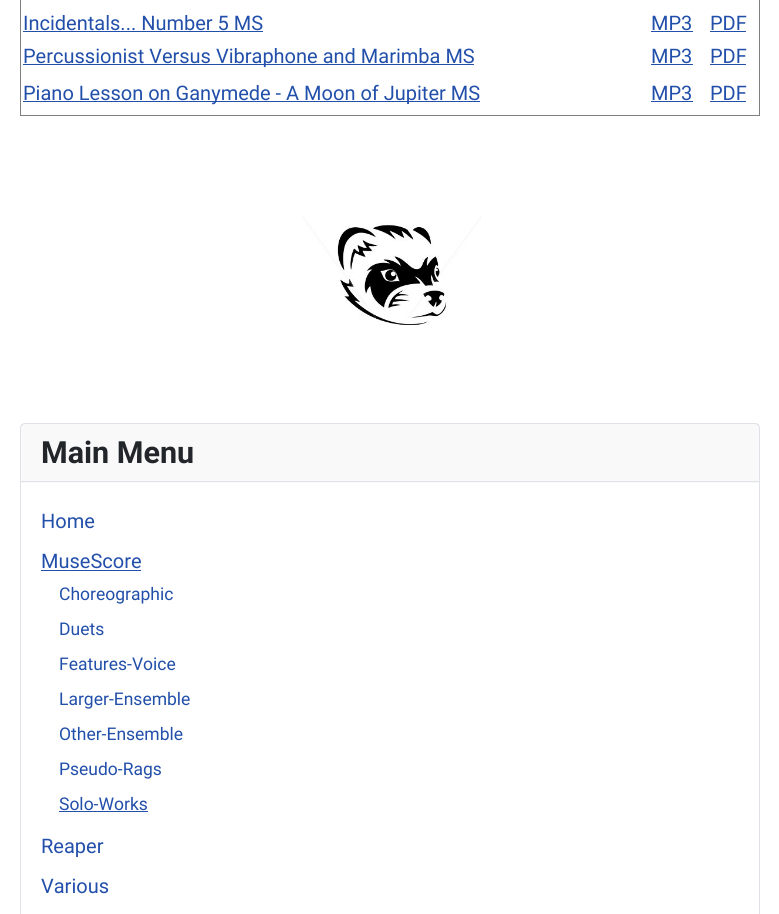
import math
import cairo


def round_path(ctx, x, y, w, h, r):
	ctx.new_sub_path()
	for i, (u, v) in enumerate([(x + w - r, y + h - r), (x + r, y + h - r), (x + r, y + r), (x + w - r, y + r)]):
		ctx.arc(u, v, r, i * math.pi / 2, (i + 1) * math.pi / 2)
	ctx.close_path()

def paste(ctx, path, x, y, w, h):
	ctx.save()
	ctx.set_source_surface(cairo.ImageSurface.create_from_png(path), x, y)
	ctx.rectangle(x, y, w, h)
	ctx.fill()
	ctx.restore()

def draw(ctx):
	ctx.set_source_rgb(1, 1, 1)
	ctx.paint()
	ctx.set_source_rgb(0.502, 0.502, 0.502)
	ctx.rectangle(759, 0, 1, 116)
	ctx.rectangle(20, 115, 740, 1)
	ctx.rectangle(20, 0, 1, 116)
	ctx.fill()
	ctx.select_font_face('Roboto')
	ctx.set_font_size(20)
	ctx.set_source_rgb(0.133, 0.31, 0.667)
	ctx.move_to(23, 30)
	ctx.show_text('Incidentals... Number 5 MS')
	ctx.rectangle(23, 31, 240, 1)
	ctx.fill()
	ctx.move_to(651, 30)
	ctx.show_text('MP3')
	ctx.rectangle(651, 31, 42, 1)
	ctx.fill()
	ctx.move_to(710, 30)
	ctx.show_text('PDF')
	ctx.rectangle(710, 31, 36, 1)
	ctx.fill()
	ctx.rectangle(23, 64, 451, 1)
	ctx.fill()
	ctx.move_to(23, 63)
	ctx.show_text('Percussionist Versus Vibraphone and Marimba MS')
	ctx.move_to(651, 63)
	ctx.show_text('MP3')
	ctx.rectangle(651, 64, 42, 1)
	ctx.fill()
	ctx.move_to(710, 63)
	ctx.show_text('PDF')
	ctx.rectangle(710, 64, 36, 1)
	ctx.fill()
	ctx.rectangle(23, 101, 457, 1)
	ctx.fill()
	ctx.move_to(23, 100)
	ctx.show_text('Piano Lesson on Ganymede - A Moon of Jupiter MS')
	ctx.move_to(651, 100)
	ctx.show_text('MP3')
	ctx.rectangle(651, 101, 42, 1)
	ctx.fill()
	ctx.move_to(710, 100)
	ctx.show_text('PDF')
	ctx.rectangle(710, 101, 36, 1)
	ctx.fill()
	paste(ctx, 'media/1.png', 302, 216, 180, 109)
	round_path(ctx, 20.5, 423.5, 739, 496, 4.5)
	ctx.set_source_rgb(0.875, 0.89, 0.906)
	ctx.set_line_width(1)
	ctx.stroke()
	ctx.set_source_rgba(0.133, 0.149, 0.165, 0.03)
	ctx.rectangle(21, 424, 738, 59)
	ctx.fill()
	ctx.set_source_rgb(0.875, 0.89, 0.906)
	ctx.rectangle(21, 481, 738, 1)
	ctx.fill()
	ctx.select_font_face('Roboto', cairo.FONT_SLANT_NORMAL, cairo.FONT_WEIGHT_BOLD)
	ctx.set_font_size(30.5)
	ctx.set_source_rgb(0.133, 0.149, 0.165)
	ctx.move_to(41, 463)
	ctx.show_text('Main Menu')
	ctx.select_font_face('Roboto')
	ctx.set_font_size(20)
	ctx.set_source_rgb(0.133, 0.31, 0.667)
	ctx.move_to(41, 528)
	ctx.show_text('Home')
	ctx.move_to(41, 568)
	ctx.show_text('MuseScore')
	ctx.rectangle(41, 570, 100, 1)
	ctx.fill()
	ctx.set_font_size(17.5)
	for x, y, s in [
		(59, 600, 'Choreographic'),
		(59, 635, 'Duets'),
		(59, 670, 'Features-Voice'),
		(59, 705, 'Larger-Ensemble'),
		(59, 740, 'Other-Ensemble'),
		(59, 775, 'Pseudo-Rags'),
		(59, 810, 'Solo-Works'),
	]:
		ctx.move_to(x, y)
		ctx.show_text(s)
	ctx.rectangle(59, 811, 89, 1)
	ctx.fill()
	ctx.set_font_size(20)
	ctx.move_to(41, 853)
	ctx.show_text('Reaper')
	ctx.move_to(41, 893)
	ctx.show_text('Various')


surface = cairo.ImageSurface(cairo.FORMAT_RGB24, 779, 914)
ctx = cairo.Context(surface)
options = cairo.FontOptions()
options.set_hint_metrics(cairo.HINT_METRICS_OFF)
options.set_hint_style(cairo.HINT_STYLE_NONE)
ctx.set_font_options(options)
ctx.set_miter_limit(4)
draw(ctx)
surface.write_to_png('image.png')
